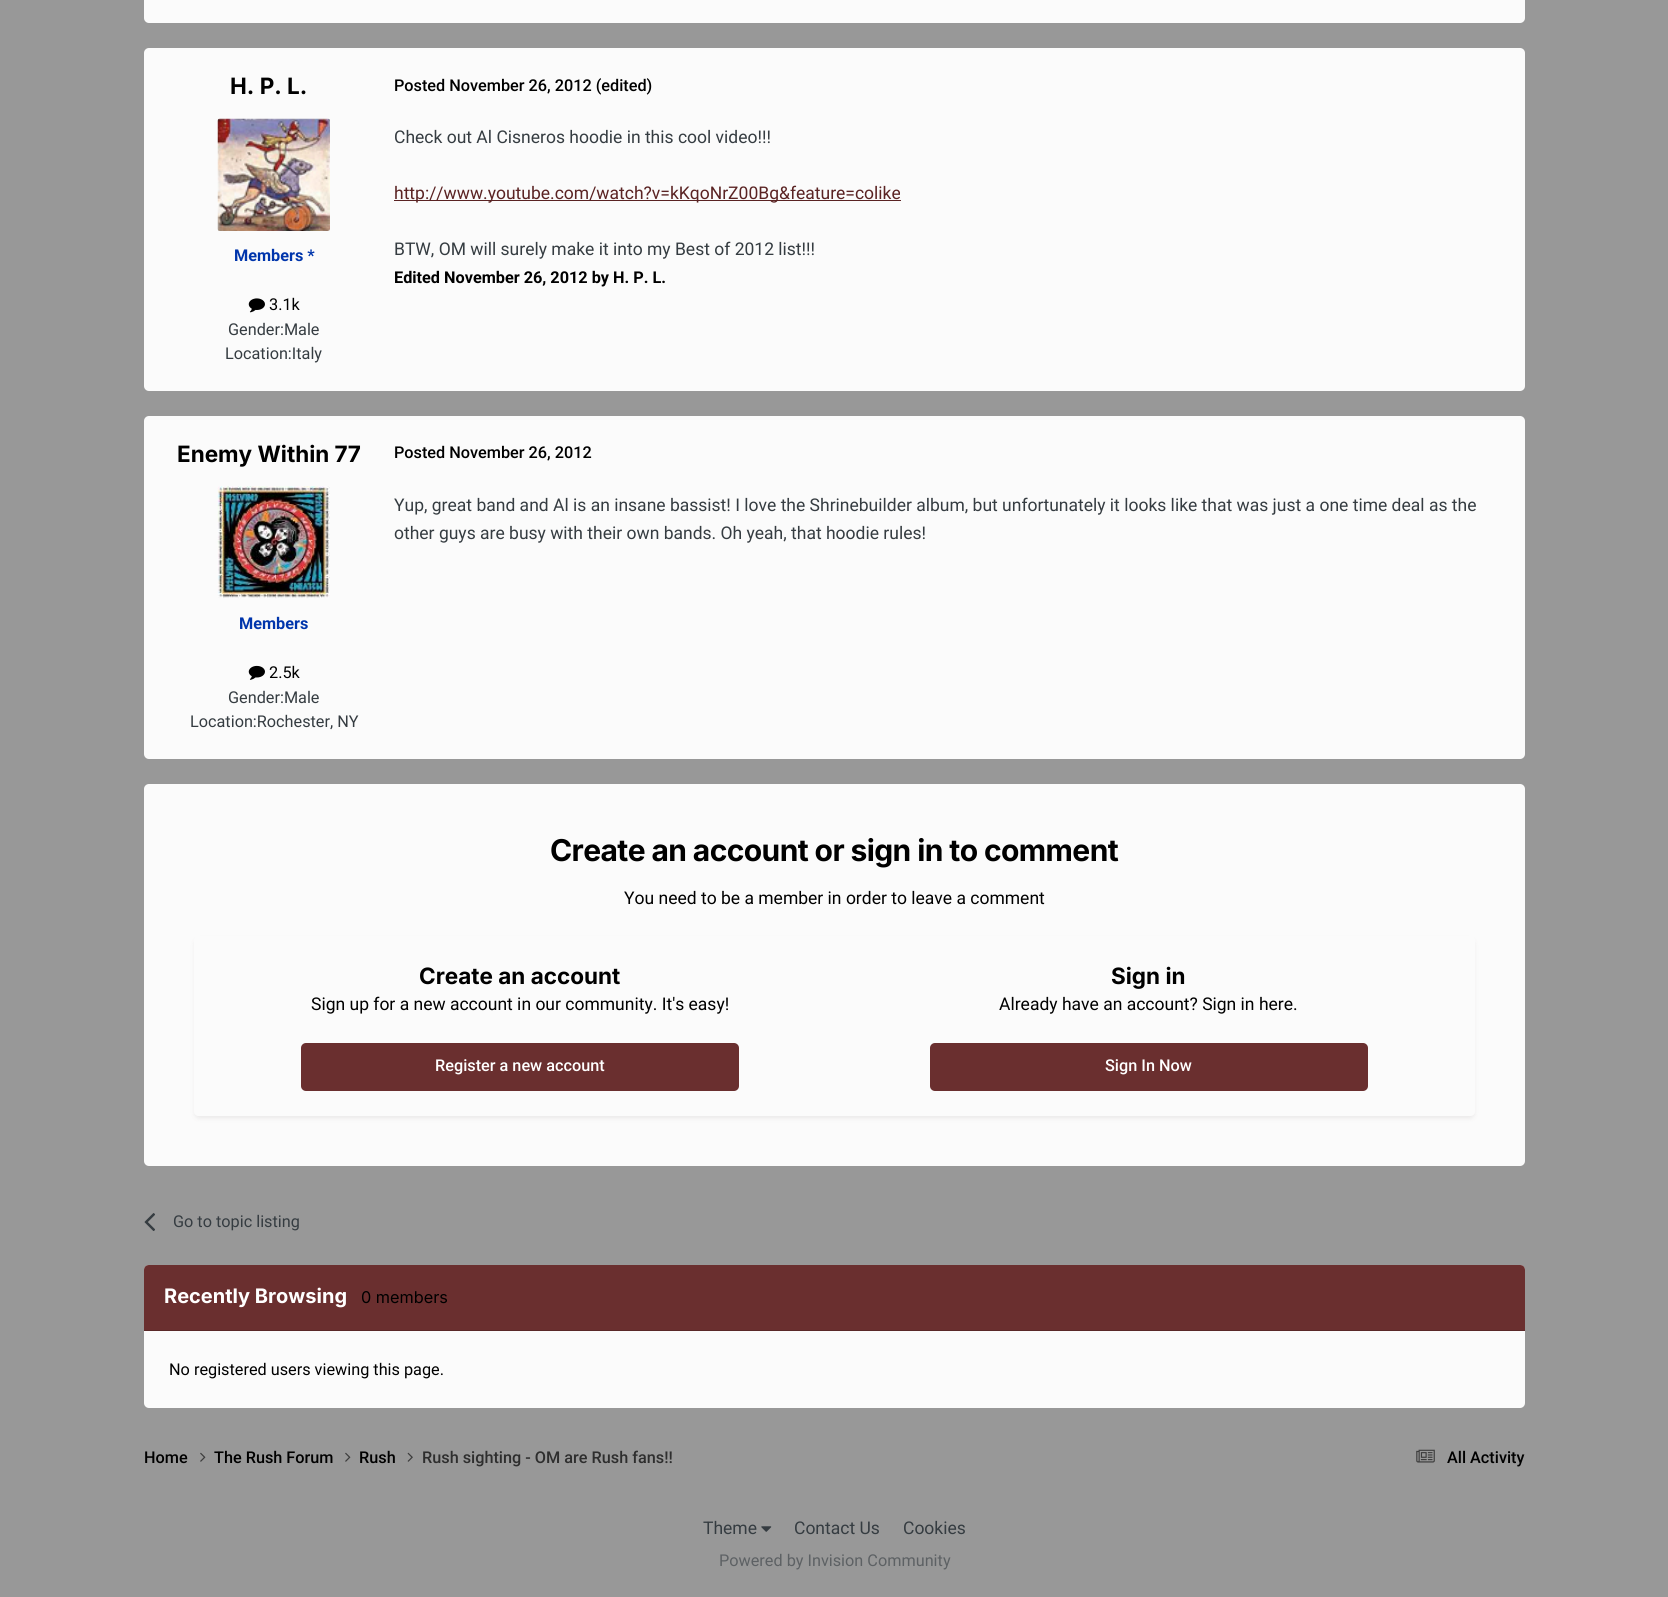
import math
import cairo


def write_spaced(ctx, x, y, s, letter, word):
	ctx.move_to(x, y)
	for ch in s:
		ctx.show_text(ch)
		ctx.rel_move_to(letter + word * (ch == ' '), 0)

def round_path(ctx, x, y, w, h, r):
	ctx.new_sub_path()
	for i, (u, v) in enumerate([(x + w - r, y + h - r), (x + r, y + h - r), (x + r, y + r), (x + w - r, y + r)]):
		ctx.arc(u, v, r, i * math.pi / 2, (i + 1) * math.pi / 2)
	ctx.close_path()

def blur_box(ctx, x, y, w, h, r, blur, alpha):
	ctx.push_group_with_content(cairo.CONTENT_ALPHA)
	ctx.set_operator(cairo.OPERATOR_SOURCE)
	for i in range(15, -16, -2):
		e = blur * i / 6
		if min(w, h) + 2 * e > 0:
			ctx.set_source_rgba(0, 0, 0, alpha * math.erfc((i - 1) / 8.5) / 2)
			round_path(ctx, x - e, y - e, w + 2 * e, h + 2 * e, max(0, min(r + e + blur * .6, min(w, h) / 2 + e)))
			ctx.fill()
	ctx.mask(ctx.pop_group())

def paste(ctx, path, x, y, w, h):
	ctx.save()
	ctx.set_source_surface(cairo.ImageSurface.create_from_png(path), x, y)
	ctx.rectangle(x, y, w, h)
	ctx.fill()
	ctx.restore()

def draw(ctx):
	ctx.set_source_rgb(0.596, 0.596, 0.596)
	ctx.paint()
	ctx.set_source_rgb(0.984, 0.984, 0.984)
	round_path(ctx, 144, -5, 1381, 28, 5)
	ctx.fill()
	round_path(ctx, 144, 48, 1381, 343, 5)
	ctx.fill()
	ctx.select_font_face('Inter', cairo.FONT_SLANT_NORMAL, cairo.FONT_WEIGHT_BOLD)
	ctx.set_font_size(22.5)
	ctx.set_source_rgb(0, 0, 0)
	ctx.move_to(230, 94)
	ctx.show_text('H. P. L.')
	paste(ctx, 'media/1.png', 217, 118, 113, 113)
	ctx.select_font_face('Roboto', cairo.FONT_SLANT_NORMAL, cairo.FONT_WEIGHT_BOLD)
	ctx.set_font_size(16.25)
	ctx.set_source_rgb(0, 0.208, 0.675)
	ctx.move_to(234, 261)
	ctx.show_text('Members *')
	paste(ctx, 'media/2.png', 248, 298, 17, 15)
	ctx.select_font_face('Roboto')
	ctx.set_source_rgb(0, 0, 0)
	ctx.move_to(269, 310)
	ctx.show_text('3.1k')
	ctx.set_source_rgb(0.208, 0.235, 0.255)
	ctx.move_to(228, 335)
	ctx.show_text('Gender:Male')
	ctx.move_to(225, 359)
	ctx.show_text('Location:Italy')
	ctx.select_font_face('Roboto Medium')
	ctx.set_source_rgb(0, 0, 0)
	ctx.move_to(394, 91)
	ctx.show_text('Posted November 26, 2012 (edited)')
	ctx.select_font_face('Roboto')
	ctx.set_font_size(17.5)
	ctx.set_source_rgb(0.208, 0.235, 0.255)
	ctx.move_to(394, 143)
	ctx.show_text('Check out Al Cisneros hoodie in this cool video!!!')
	ctx.set_source_rgb(0.353, 0.137, 0.137)
	ctx.rectangle(394, 200, 507, 1)
	ctx.fill()
	ctx.move_to(394, 199)
	ctx.show_text('http://www.youtube.com/watch?v=kKqoNrZ00Bg&feature=colike')
	ctx.set_source_rgb(0.208, 0.235, 0.255)
	ctx.move_to(394, 255)
	ctx.show_text('BTW, OM will surely make it into my Best of 2012 list!!!')
	ctx.select_font_face('Roboto', cairo.FONT_SLANT_NORMAL, cairo.FONT_WEIGHT_BOLD)
	ctx.set_font_size(16.25)
	ctx.set_source_rgb(0, 0, 0)
	ctx.move_to(394, 283)
	ctx.show_text('Edited November 26, 2012 by H. P. L.')
	ctx.set_source_rgb(0.984, 0.984, 0.984)
	round_path(ctx, 144, 416, 1381, 343, 5)
	ctx.fill()
	ctx.select_font_face('Inter', cairo.FONT_SLANT_NORMAL, cairo.FONT_WEIGHT_BOLD)
	ctx.set_font_size(22.5)
	ctx.set_source_rgb(0, 0, 0)
	ctx.move_to(177, 462)
	ctx.show_text('Enemy Within 77')
	paste(ctx, 'media/3.png', 217, 486, 113, 113)
	ctx.select_font_face('Roboto', cairo.FONT_SLANT_NORMAL, cairo.FONT_WEIGHT_BOLD)
	ctx.set_font_size(16.25)
	ctx.set_source_rgb(0, 0.208, 0.675)
	ctx.move_to(239, 629)
	ctx.show_text('Members')
	paste(ctx, 'media/4.png', 248, 665, 17, 15)
	ctx.select_font_face('Roboto')
	ctx.set_source_rgb(0, 0, 0)
	ctx.move_to(269, 678)
	ctx.show_text('2.5k')
	ctx.set_source_rgb(0.208, 0.235, 0.255)
	ctx.move_to(228, 703)
	ctx.show_text('Gender:Male')
	ctx.move_to(190, 727)
	ctx.show_text('Location:Rochester, NY')
	ctx.select_font_face('Roboto Medium')
	ctx.set_source_rgb(0, 0, 0)
	ctx.move_to(394, 458)
	ctx.show_text('Posted November 26, 2012')
	ctx.select_font_face('Roboto')
	ctx.set_font_size(17.5)
	ctx.set_source_rgb(0.208, 0.235, 0.255)
	ctx.move_to(394, 511)
	ctx.show_text('Yup, great band and Al is an insane bassist! I love the Shrinebuilder album, but unfortunately it looks like that was just a one time deal as the')
	ctx.move_to(394, 539)
	ctx.show_text('other guys are busy with their own bands. Oh yeah, that hoodie rules!')
	ctx.set_source_rgb(0.984, 0.984, 0.984)
	round_path(ctx, 144, 784, 1381, 382, 5)
	ctx.fill()
	ctx.select_font_face('Inter', cairo.FONT_SLANT_NORMAL, cairo.FONT_WEIGHT_BOLD)
	ctx.set_font_size(30)
	ctx.set_source_rgb(0, 0, 0)
	write_spaced(ctx, 550, 861, 'Create an account or sign in to comment', -0.6, 0)
	ctx.select_font_face('Roboto')
	ctx.set_font_size(17.5)
	ctx.move_to(624, 904)
	ctx.show_text('You need to be a member in order to leave a comment')
	ctx.save()
	ctx.set_fill_rule(cairo.FILL_RULE_EVEN_ODD)
	ctx.new_path()
	ctx.move_to(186, 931)
	ctx.line_to(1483, 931)
	ctx.line_to(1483, 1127)
	ctx.line_to(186, 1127)
	ctx.close_path()
	ctx.move_to(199, 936)
	ctx.line_to(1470, 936)
	ctx.curve_to(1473, 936, 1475, 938, 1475, 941)
	ctx.line_to(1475, 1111)
	ctx.curve_to(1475, 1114, 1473, 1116, 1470, 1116)
	ctx.line_to(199, 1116)
	ctx.curve_to(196, 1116, 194, 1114, 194, 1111)
	ctx.line_to(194, 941)
	ctx.curve_to(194, 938, 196, 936, 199, 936)
	ctx.close_path()
	ctx.clip()
	ctx.set_source_rgb(0.267, 0.216, 0.216)
	blur_box(ctx, 195, 940, 1279, 178, 4, 2.5, 0.1)
	ctx.restore()
	ctx.select_font_face('Inter', cairo.FONT_SLANT_NORMAL, cairo.FONT_WEIGHT_BOLD)
	ctx.set_font_size(22.5)
	ctx.move_to(419, 984)
	ctx.show_text('Create an account')
	ctx.select_font_face('Roboto')
	ctx.set_font_size(17.5)
	ctx.move_to(311, 1010)
	ctx.show_text('Sign up for a new account in our community. It\'s easy!')
	ctx.set_source_rgb(0.416, 0.184, 0.184)
	round_path(ctx, 301, 1043, 438, 48, 5)
	ctx.fill()
	ctx.select_font_face('Roboto Medium')
	ctx.set_font_size(16.25)
	ctx.set_source_rgb(1, 1, 1)
	ctx.move_to(435, 1071)
	ctx.show_text('Register a new account')
	ctx.select_font_face('Inter', cairo.FONT_SLANT_NORMAL, cairo.FONT_WEIGHT_BOLD)
	ctx.set_font_size(22.5)
	ctx.set_source_rgb(0, 0, 0)
	ctx.move_to(1111, 984)
	ctx.show_text('Sign in')
	ctx.select_font_face('Roboto')
	ctx.set_font_size(17.5)
	ctx.move_to(999, 1010)
	ctx.show_text('Already have an account? Sign in here.')
	ctx.set_source_rgb(0.416, 0.184, 0.184)
	round_path(ctx, 930, 1043, 438, 48, 5)
	ctx.fill()
	ctx.select_font_face('Roboto Medium')
	ctx.set_font_size(16.25)
	ctx.set_source_rgb(1, 1, 1)
	ctx.move_to(1105, 1071)
	ctx.show_text('Sign In Now')
	paste(ctx, 'media/5.png', 144, 1213, 11, 18)
	ctx.select_font_face('Roboto')
	ctx.set_source_rgb(0.208, 0.235, 0.255)
	ctx.move_to(173, 1227)
	ctx.show_text('Go to topic listing')
	ctx.set_source_rgb(0.984, 0.984, 0.984)
	round_path(ctx, 144, 1265, 1381, 143, 5)
	ctx.fill()
	ctx.set_source_rgb(0.416, 0.184, 0.184)
	ctx.new_path()
	ctx.move_to(149, 1265)
	ctx.line_to(1520, 1265)
	ctx.curve_to(1523, 1265, 1525, 1267, 1525, 1270)
	ctx.line_to(1525, 1331)
	ctx.line_to(144, 1331)
	ctx.line_to(144, 1270)
	ctx.curve_to(144, 1267, 146, 1265, 149, 1265)
	ctx.close_path()
	ctx.fill()
	ctx.set_source_rgb(0.353, 0.157, 0.157)
	ctx.rectangle(144, 1330, 1381, 1)
	ctx.fill()
	ctx.select_font_face('Inter', cairo.FONT_SLANT_NORMAL, cairo.FONT_WEIGHT_BOLD)
	ctx.set_font_size(20)
	ctx.set_source_rgb(1, 1, 1)
	ctx.move_to(164, 1303)
	ctx.show_text('Recently Browsing')
	ctx.select_font_face('Inter')
	ctx.set_font_size(16.25)
	ctx.set_source_rgb(0, 0, 0)
	ctx.move_to(361, 1303)
	ctx.show_text('0 members')
	ctx.select_font_face('Roboto')
	ctx.move_to(169, 1375)
	ctx.show_text('No registered users viewing this page.')
	ctx.select_font_face('Roboto Medium')
	ctx.move_to(144, 1463)
	ctx.show_text('Home')
	paste(ctx, 'media/6.png', 200, 1452, 6, 10)
	ctx.move_to(214, 1463)
	ctx.show_text('The Rush Forum')
	paste(ctx, 'media/6.png', 345, 1452, 6, 10)
	ctx.move_to(359, 1463)
	ctx.show_text('Rush')
	paste(ctx, 'media/7.png', 407, 1452, 6, 10)
	ctx.set_source_rgb(0.18, 0.18, 0.18)
	ctx.move_to(422, 1463)
	ctx.show_text('Rush sighting - OM are Rush fans!!')
	paste(ctx, 'media/8.png', 1416, 1449, 19, 14)
	ctx.set_source_rgb(0, 0, 0)
	ctx.move_to(1447, 1463)
	ctx.show_text('All Activity')
	ctx.select_font_face('Roboto')
	ctx.set_font_size(17.5)
	ctx.set_source_rgb(0.208, 0.235, 0.255)
	ctx.move_to(703, 1534)
	ctx.show_text('Theme')
	paste(ctx, 'media/9.png', 761, 1526, 11, 6)
	ctx.move_to(794, 1534)
	ctx.show_text('Contact Us')
	ctx.move_to(903, 1534)
	ctx.show_text('Cookies')
	ctx.set_font_size(16.25)
	ctx.set_source_rgb(0.365, 0.38, 0.392)
	ctx.move_to(719, 1566)
	ctx.show_text('Powered by Invision Community')


surface = cairo.ImageSurface(cairo.FORMAT_RGB24, 1668, 1597)
ctx = cairo.Context(surface)
options = cairo.FontOptions()
options.set_hint_metrics(cairo.HINT_METRICS_OFF)
options.set_hint_style(cairo.HINT_STYLE_NONE)
ctx.set_font_options(options)
ctx.set_miter_limit(4)
draw(ctx)
surface.write_to_png('image.png')
